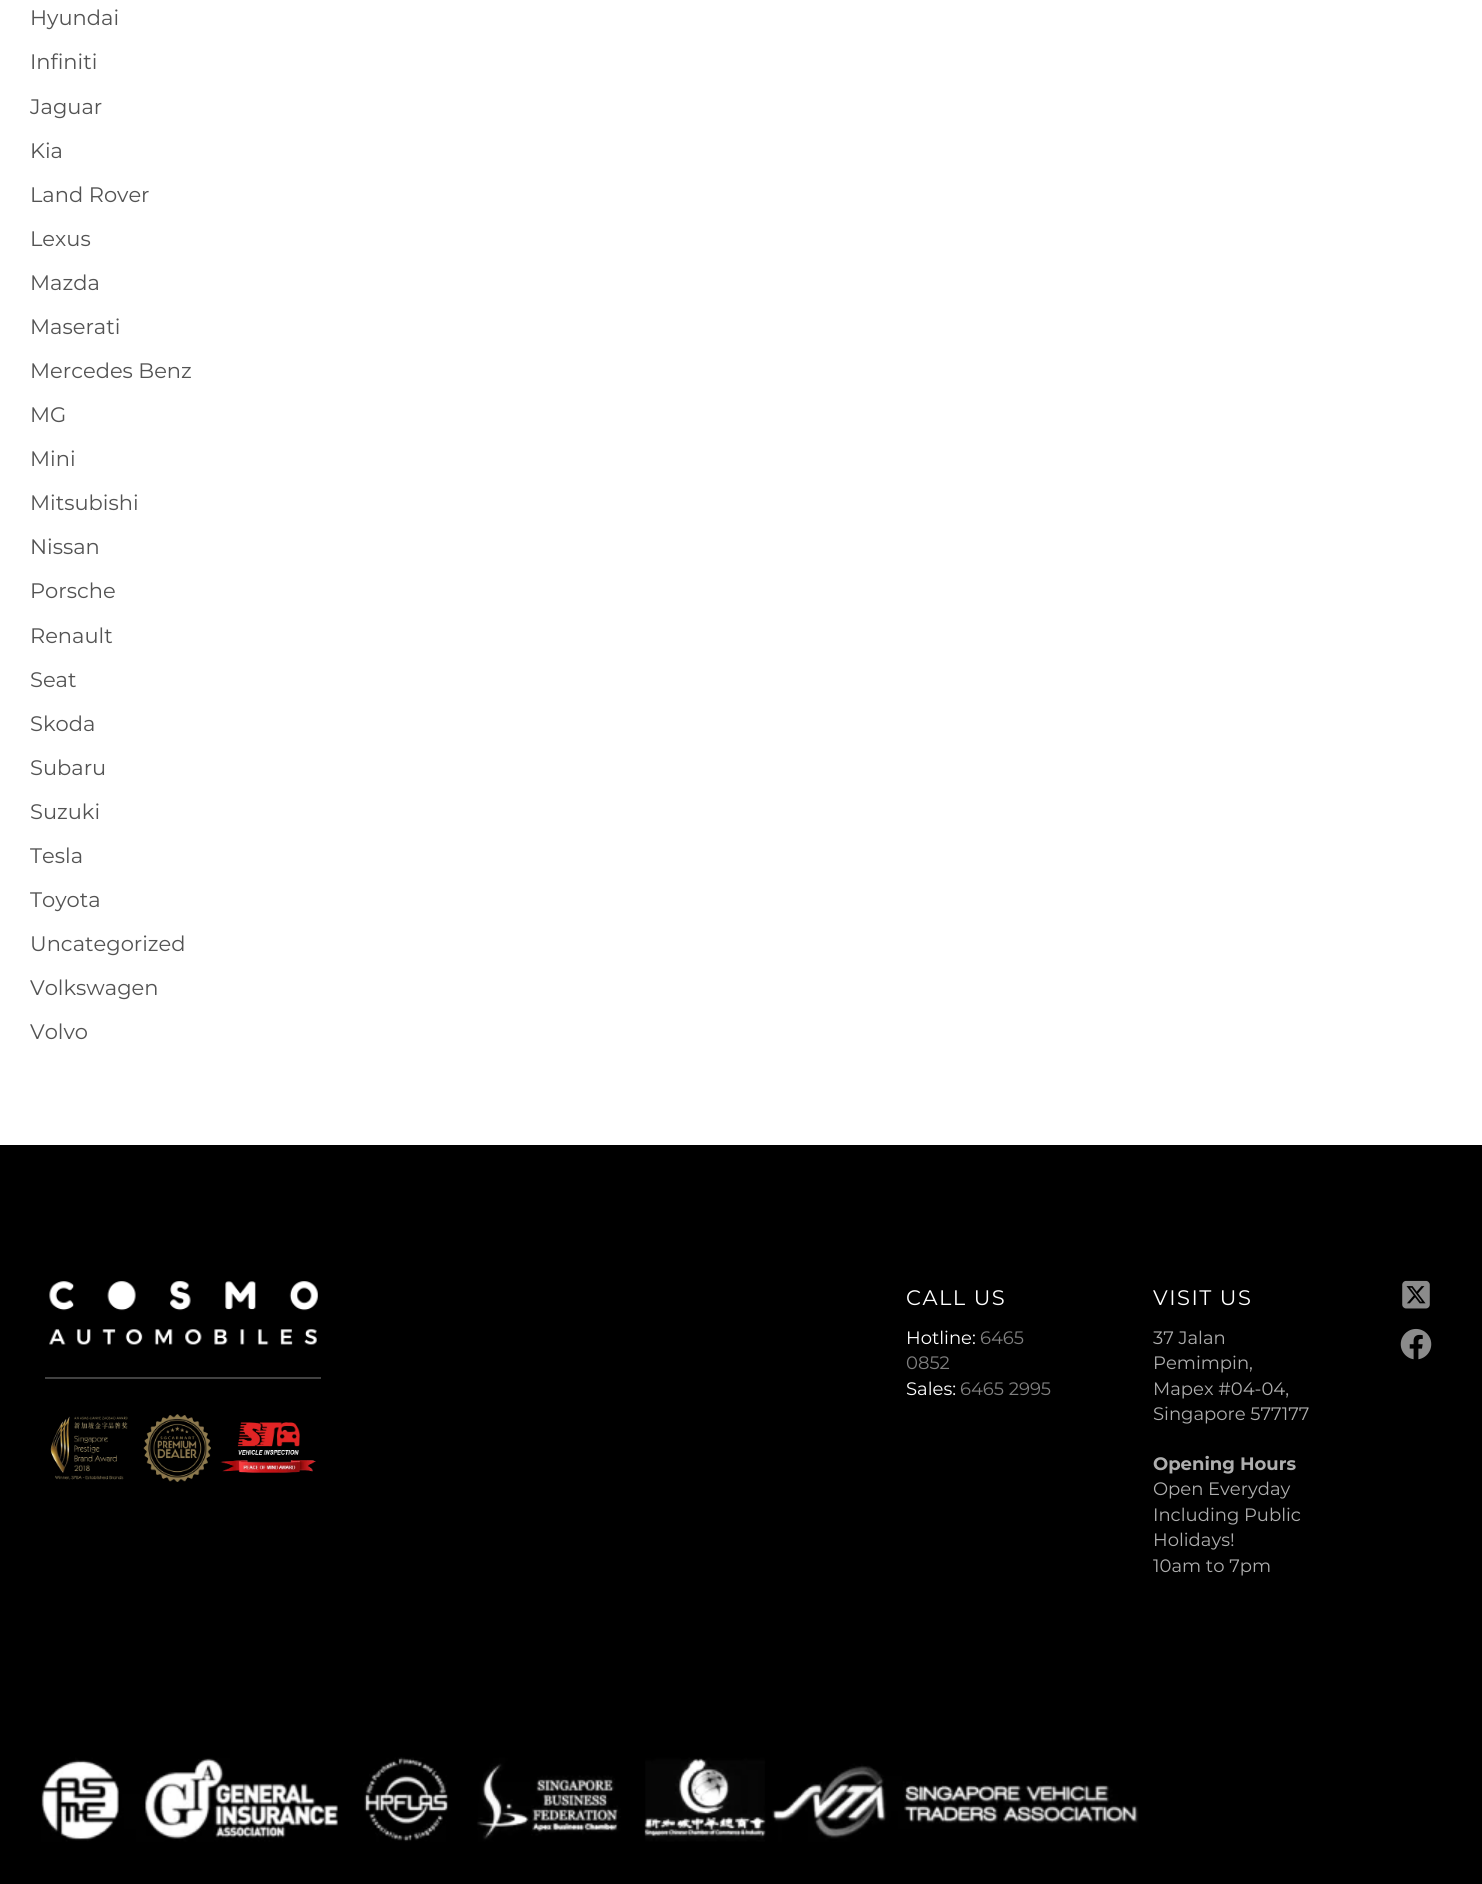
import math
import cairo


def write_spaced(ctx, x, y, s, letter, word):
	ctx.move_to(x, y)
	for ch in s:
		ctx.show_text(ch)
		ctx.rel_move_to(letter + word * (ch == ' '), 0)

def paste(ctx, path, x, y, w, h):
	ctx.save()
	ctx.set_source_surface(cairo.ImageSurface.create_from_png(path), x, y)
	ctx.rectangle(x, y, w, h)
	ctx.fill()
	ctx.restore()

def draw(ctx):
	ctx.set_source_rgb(1, 1, 1)
	ctx.paint()
	ctx.select_font_face('Montserrat')
	ctx.set_font_size(21)
	ctx.set_source_rgb(0.325, 0.325, 0.325)
	for x, y, s in [
		(30, 25, 'Hyundai'),
		(30, 69, 'Infiniti'),
		(30, 114, 'Jaguar'),
		(30, 158, 'Kia'),
		(30, 202, 'Land Rover'),
		(30, 246, 'Lexus'),
		(30, 290, 'Mazda'),
		(30, 334, 'Maserati'),
		(30, 378, 'Mercedes Benz'),
		(30, 422, 'MG'),
		(30, 466, 'Mini'),
		(30, 510, 'Mitsubishi'),
		(30, 554, 'Nissan'),
		(30, 598, 'Porsche'),
		(30, 643, 'Renault'),
		(30, 687, 'Seat'),
		(30, 731, 'Skoda'),
		(30, 775, 'Subaru'),
		(30, 819, 'Suzuki'),
		(30, 863, 'Tesla'),
		(30, 907, 'Toyota'),
		(30, 951, 'Uncategorized'),
		(30, 995, 'Volkswagen'),
		(30, 1039, 'Volvo'),
	]:
		ctx.move_to(x, y)
		ctx.show_text(s)
	ctx.set_source_rgb(0, 0, 0)
	ctx.rectangle(0, 1145, 1482, 739)
	ctx.fill()
	paste(ctx, 'media/1.png', 49, 1281, 269, 64)
	ctx.set_source_rgb(0.255, 0.255, 0.255)
	ctx.rectangle(45, 1377, 276, 2)
	ctx.fill()
	paste(ctx, 'media/2.png', 50, 1414, 266, 68)
	ctx.set_source_rgb(1, 1, 1)
	write_spaced(ctx, 906, 1305, 'CALL US', 1.5, 0)
	ctx.set_font_size(18)
	ctx.move_to(906, 1344)
	ctx.show_text('Hotline:')
	ctx.set_source_rgb(0.502, 0.502, 0.502)
	ctx.move_to(980, 1344)
	ctx.show_text('6465')
	ctx.move_to(906, 1369)
	ctx.show_text('0852')
	ctx.set_source_rgb(1, 1, 1)
	ctx.move_to(906, 1395)
	ctx.show_text('Sales:')
	ctx.set_source_rgb(0.502, 0.502, 0.502)
	ctx.move_to(960, 1395)
	ctx.show_text('6465 2995')
	ctx.set_font_size(21)
	ctx.set_source_rgb(1, 1, 1)
	write_spaced(ctx, 1153, 1305, 'VISIT US', 1.5, 0)
	ctx.set_font_size(18)
	ctx.set_source_rgb(0.682, 0.682, 0.682)
	for x, y, s in [
		(1153, 1344, '37 Jalan'),
		(1153, 1369, 'Pemimpin,'),
		(1153, 1395, 'Mapex #04-04,'),
		(1153, 1420, 'Singapore 577177'),
	]:
		ctx.move_to(x, y)
		ctx.show_text(s)
	ctx.select_font_face('Montserrat', cairo.FONT_SLANT_NORMAL, cairo.FONT_WEIGHT_BOLD)
	ctx.move_to(1153, 1470)
	ctx.show_text('Opening Hours')
	ctx.select_font_face('Montserrat')
	for x, y, s in [
		(1153, 1495, 'Open Everyday'),
		(1153, 1521, 'Including Public'),
		(1153, 1546, 'Holidays!'),
		(1153, 1572, '10am to 7pm'),
	]:
		ctx.move_to(x, y)
		ctx.show_text(s)
	paste(ctx, 'media/3.png', 1402, 1280, 28, 29)
	paste(ctx, 'media/4.png', 1400, 1328, 32, 32)
	paste(ctx, 'media/5.png', 41, 1757, 1098, 85)


surface = cairo.ImageSurface(cairo.FORMAT_RGB24, 1482, 1884)
ctx = cairo.Context(surface)
options = cairo.FontOptions()
options.set_hint_metrics(cairo.HINT_METRICS_OFF)
options.set_hint_style(cairo.HINT_STYLE_NONE)
ctx.set_font_options(options)
ctx.set_miter_limit(4)
draw(ctx)
surface.write_to_png('image.png')
